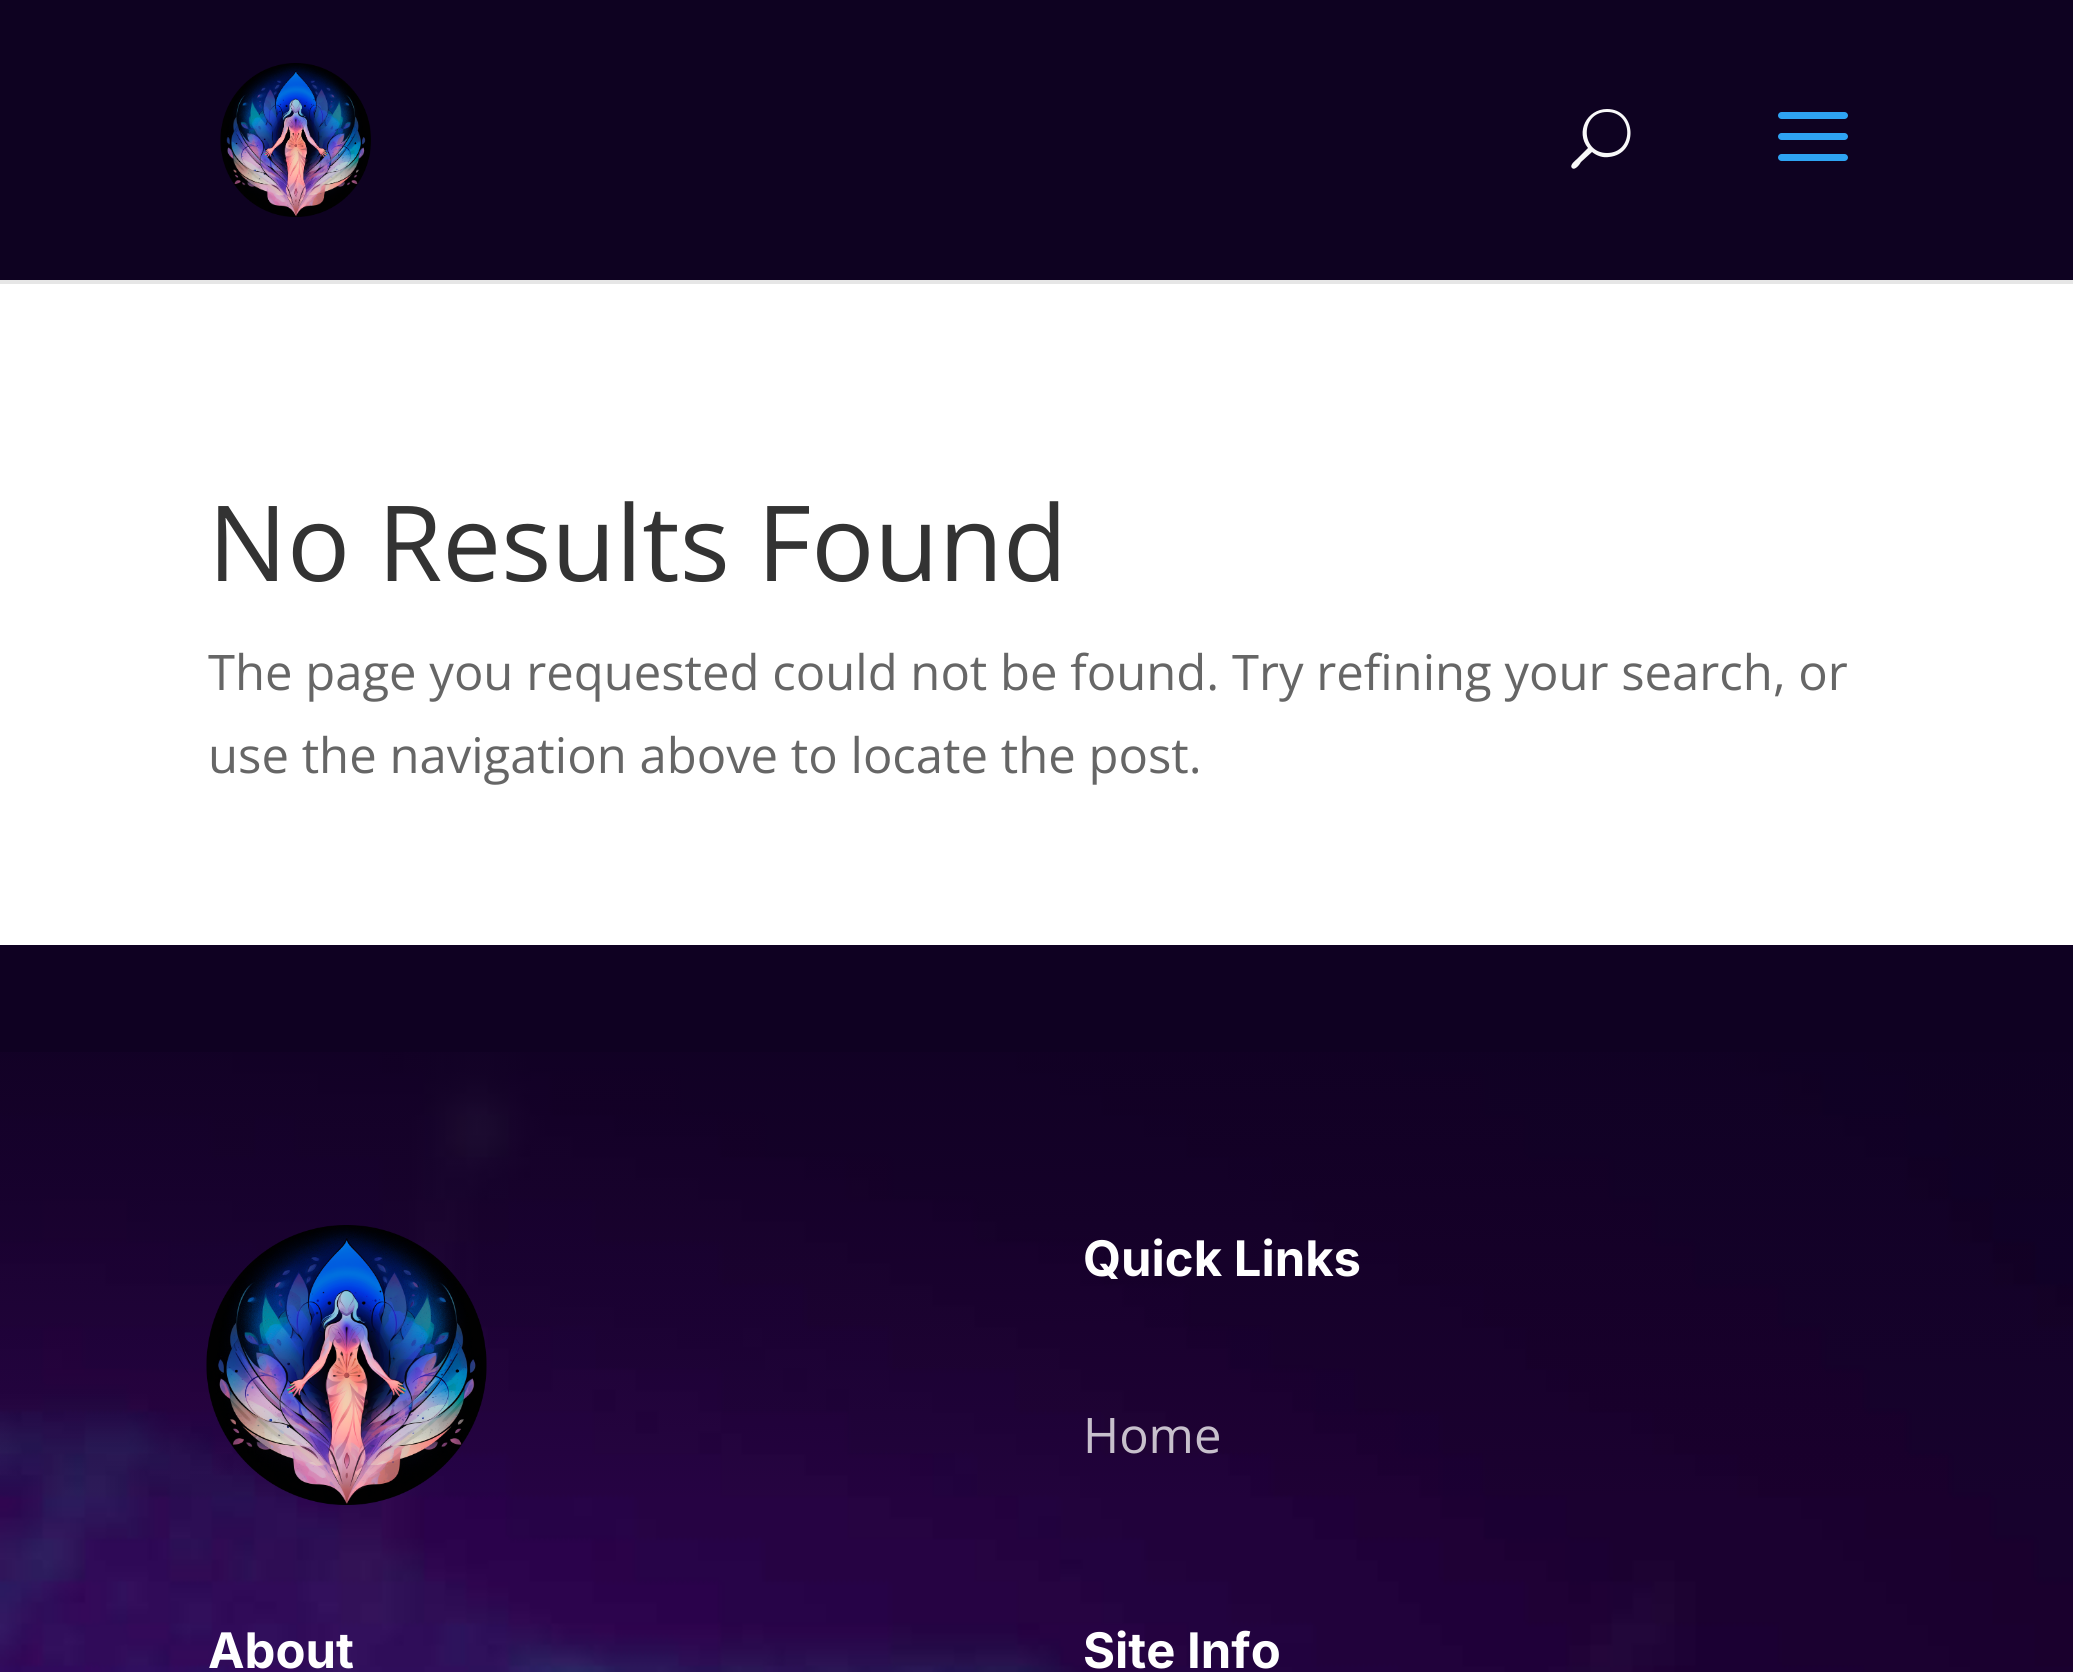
import math
import cairo


def paste(ctx, path, x, y, w, h):
	ctx.save()
	ctx.set_source_surface(cairo.ImageSurface.create_from_png(path), x, y)
	ctx.rectangle(x, y, w, h)
	ctx.fill()
	ctx.restore()

def draw(ctx):
	ctx.set_source_rgb(1, 1, 1)
	ctx.paint()
	ctx.set_source_rgb(0.902, 0.902, 0.902)
	ctx.new_path()
	ctx.move_to(0, 280)
	ctx.line_to(0, 284)
	ctx.line_to(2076, 284)
	ctx.line_to(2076, 4)
	ctx.line_to(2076, 280)
	ctx.close_path()
	ctx.fill()
	ctx.set_source_rgb(0.055, 0.008, 0.129)
	ctx.rectangle(0, 0, 2073, 280)
	ctx.fill()
	paste(ctx, 'media/1.png', 220, 63, 151, 154)
	ctx.set_source_rgb(0.976, 0.976, 0.976)
	ctx.new_path()
	ctx.move_to(1607, 109)
	ctx.curve_to(1587, 109, 1575, 132, 1588, 148)
	ctx.line_to(1577, 159)
	ctx.curve_to(1576, 160, 1569, 165, 1572, 168)
	ctx.curve_to(1575, 171, 1580, 164, 1581, 162)
	ctx.line_to(1592, 152)
	ctx.curve_to(1597, 156, 1603, 158, 1609, 157)
	ctx.curve_to(1639, 154, 1637, 109, 1607, 109)
	ctx.close_path()
	ctx.move_to(1607, 153)
	ctx.curve_to(1580, 153, 1580, 112, 1607, 112)
	ctx.curve_to(1634, 112, 1634, 153, 1607, 153)
	ctx.close_path()
	ctx.fill()
	paste(ctx, 'media/2.png', 1778, 112, 70, 49)
	ctx.select_font_face('Open Sans')
	ctx.set_font_size(105)
	ctx.set_source_rgb(0.2, 0.2, 0.2)
	ctx.move_to(208, 581)
	ctx.show_text('No Results Found')
	ctx.set_font_size(49)
	ctx.set_source_rgb(0.4, 0.4, 0.4)
	ctx.move_to(208, 690)
	ctx.show_text('The page you requested could not be found. Try refining your search, or')
	ctx.move_to(208, 773)
	ctx.show_text('use the navigation above to locate the post.')
	ctx.set_source_rgb(0.059, 0.004, 0.133)
	ctx.rectangle(0, 945, 2073, 107)
	ctx.fill()
	paste(ctx, 'media/3.png', 0, 1052, 2073, 620)
	paste(ctx, 'media/4.png', 206, 1225, 281, 280)
	ctx.select_font_face('Inter', cairo.FONT_SLANT_NORMAL, cairo.FONT_WEIGHT_BOLD)
	ctx.set_source_rgb(1, 1, 1)
	ctx.move_to(1083, 1276)
	ctx.show_text('Quick Links')
	ctx.select_font_face('Open Sans')
	ctx.set_source_rgb(0.78, 0.753, 0.8)
	ctx.move_to(1083, 1453)
	ctx.show_text('Home')
	ctx.select_font_face('Inter', cairo.FONT_SLANT_NORMAL, cairo.FONT_WEIGHT_BOLD)
	ctx.set_source_rgb(1, 1, 1)
	ctx.move_to(208, 1668)
	ctx.show_text('About')
	ctx.move_to(1083, 1668)
	ctx.show_text('Site Info')


surface = cairo.ImageSurface(cairo.FORMAT_RGB24, 2073, 1672)
ctx = cairo.Context(surface)
options = cairo.FontOptions()
options.set_hint_metrics(cairo.HINT_METRICS_OFF)
options.set_hint_style(cairo.HINT_STYLE_NONE)
ctx.set_font_options(options)
ctx.set_miter_limit(4)
draw(ctx)
surface.write_to_png('image.png')
